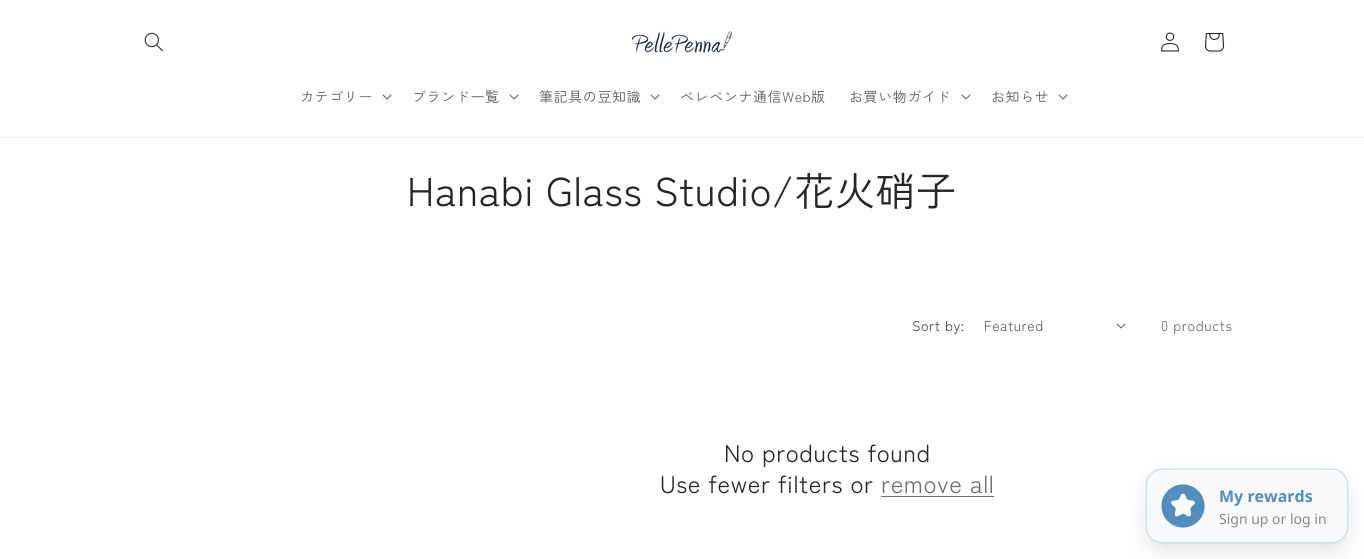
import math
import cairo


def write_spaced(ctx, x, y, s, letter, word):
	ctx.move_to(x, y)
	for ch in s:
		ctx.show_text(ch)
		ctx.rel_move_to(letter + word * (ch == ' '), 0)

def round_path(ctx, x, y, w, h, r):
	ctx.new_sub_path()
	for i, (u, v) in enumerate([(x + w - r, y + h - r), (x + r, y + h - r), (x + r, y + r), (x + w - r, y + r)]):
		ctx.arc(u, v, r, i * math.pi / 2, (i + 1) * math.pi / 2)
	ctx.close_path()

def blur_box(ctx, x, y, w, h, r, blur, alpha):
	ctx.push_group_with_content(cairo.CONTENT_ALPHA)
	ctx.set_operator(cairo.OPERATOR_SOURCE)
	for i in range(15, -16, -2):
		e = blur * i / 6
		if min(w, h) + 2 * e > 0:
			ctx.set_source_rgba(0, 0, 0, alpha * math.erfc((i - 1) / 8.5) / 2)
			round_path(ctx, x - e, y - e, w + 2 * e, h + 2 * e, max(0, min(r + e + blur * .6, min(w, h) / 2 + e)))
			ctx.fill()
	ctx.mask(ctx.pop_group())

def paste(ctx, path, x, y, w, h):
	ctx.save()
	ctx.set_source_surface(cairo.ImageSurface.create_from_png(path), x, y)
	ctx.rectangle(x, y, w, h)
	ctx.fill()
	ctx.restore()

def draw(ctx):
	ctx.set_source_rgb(1, 1, 1)
	ctx.paint()
	ctx.set_source_rgb(0.933, 0.933, 0.933)
	ctx.rectangle(0, 137, 1364, 1)
	ctx.fill()
	paste(ctx, 'media/1.png', 144, 32, 19, 20)
	paste(ctx, 'media/2.png', 632, 31, 100, 22)
	paste(ctx, 'media/3.png', 1161, 32, 18, 20)
	paste(ctx, 'media/4.png', 1205, 33, 20, 19)
	ctx.select_font_face('Zen Kaku Gothic New')
	ctx.set_font_size(14)
	ctx.set_source_rgb(0.361, 0.361, 0.361)
	write_spaced(ctx, 300, 102, 'カテゴリー', 0.6, 0)
	paste(ctx, 'media/5.png', 382, 94, 10, 6)
	write_spaced(ctx, 412, 102, 'ブランド一覧', 0.6, 0)
	paste(ctx, 'media/5.png', 509, 94, 10, 6)
	write_spaced(ctx, 539, 102, '筆記具の豆知識', 0.6, 0)
	paste(ctx, 'media/5.png', 650, 94, 10, 6)
	write_spaced(ctx, 680, 102, 'ペレペンナ通信Web版', 0.6, 0)
	write_spaced(ctx, 849, 102, 'お買い物ガイド', 0.6, 0)
	paste(ctx, 'media/5.png', 961, 94, 10, 6)
	write_spaced(ctx, 991, 102, 'お知らせ', 0.6, 0)
	paste(ctx, 'media/5.png', 1058, 94, 10, 6)
	ctx.set_font_size(40)
	ctx.set_source_rgb(0.145, 0.145, 0.145)
	write_spaced(ctx, 407, 206, 'Hanabi Glass Studio/花火硝子', 0.6, 0)
	ctx.set_font_size(14)
	ctx.set_source_rgb(0.275, 0.275, 0.275)
	write_spaced(ctx, 912, 331, 'Sort by:', 0.5, 0)
	ctx.set_source_rgb(0.361, 0.361, 0.361)
	write_spaced(ctx, 984, 331, 'Featured', 0.5, 0)
	paste(ctx, 'media/5.png', 1116, 323, 10, 6)
	ctx.set_source_rgb(0.4, 0.4, 0.4)
	write_spaced(ctx, 1161, 331, '0 products', 0.6, 0)
	ctx.set_font_size(24)
	ctx.set_source_rgb(0.145, 0.145, 0.145)
	write_spaced(ctx, 724, 462, 'No products found', 0.6, 0)
	write_spaced(ctx, 660, 493, 'Use fewer filters or', 0.6, 0)
	ctx.set_source_rgb(0.416, 0.435, 0.435)
	write_spaced(ctx, 881, 493, 'remove all', 0.6, 0)
	ctx.rectangle(881, 496, 113, 1)
	ctx.fill()
	ctx.set_source_rgb(0, 0, 0)
	blur_box(ctx, 1146, 473, 202, 74, 16, 8, 0.05)
	ctx.set_source_rgb(0.067, 0.094, 0.149)
	blur_box(ctx, 1156, 495, 182, 54, 6, 16, 0.1)
	ctx.set_source_rgb(0, 0, 0)
	blur_box(ctx, 1146, 469, 202, 74, 16, 0.5, 0.15)
	ctx.set_source_rgb(0.973, 0.98, 0.988)
	round_path(ctx, 1146, 469, 202, 74, 16)
	ctx.fill()
	round_path(ctx, 1146.5, 469.5, 201, 73, 15.5)
	ctx.set_source_rgba(0.325, 0.553, 0.733, 0.25)
	ctx.set_line_width(1)
	ctx.stroke()
	paste(ctx, 'media/6.png', 1161, 484, 44, 44)
	ctx.select_font_face('Noto Sans', cairo.FONT_SLANT_NORMAL, cairo.FONT_WEIGHT_BOLD)
	ctx.set_font_size(16)
	ctx.set_source_rgb(0.325, 0.553, 0.733)
	ctx.move_to(1219, 502)
	ctx.show_text('My rewards')
	ctx.select_font_face('Noto Sans')
	ctx.set_font_size(14)
	ctx.set_source_rgb(0.525, 0.533, 0.537)
	ctx.move_to(1219, 524)
	ctx.show_text('Sign up or log in')


surface = cairo.ImageSurface(cairo.FORMAT_RGB24, 1364, 559)
ctx = cairo.Context(surface)
options = cairo.FontOptions()
options.set_hint_metrics(cairo.HINT_METRICS_OFF)
options.set_hint_style(cairo.HINT_STYLE_NONE)
ctx.set_font_options(options)
ctx.set_miter_limit(4)
draw(ctx)
surface.write_to_png('image.png')
